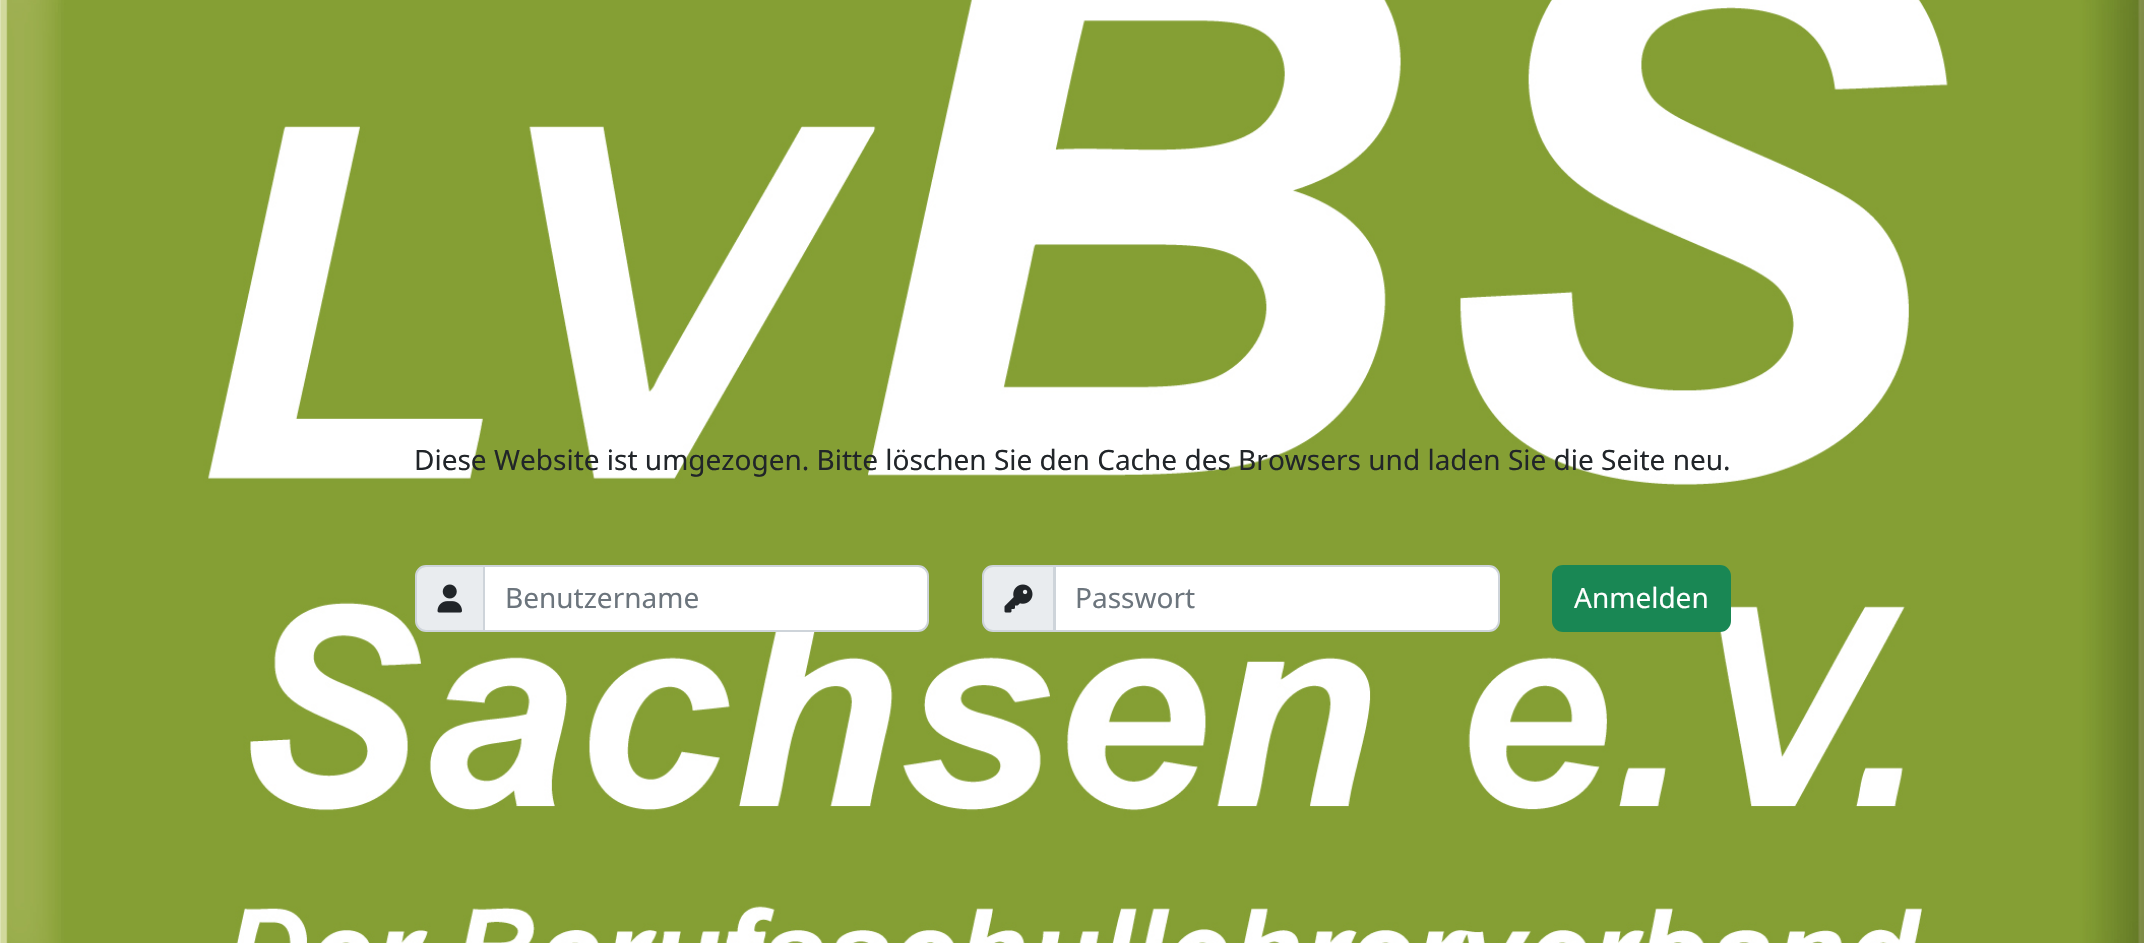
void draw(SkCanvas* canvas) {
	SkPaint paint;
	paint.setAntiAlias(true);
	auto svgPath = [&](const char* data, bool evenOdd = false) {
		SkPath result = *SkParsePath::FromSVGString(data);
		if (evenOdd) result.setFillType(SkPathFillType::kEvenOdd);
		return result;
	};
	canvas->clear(0xffffffff);
	canvas->drawImageRect(SkImages::DeferredFromEncodedData(SkData::MakeFromFileName("img1.png")), SkRect::MakeXYWH(0, 0, 2144, 943), SkSamplingOptions());
	SkFont f1(fontMgr->matchFamilyStyle("Noto Sans", SkFontStyle::Normal()), 28);
	f1.setSubpixel(true);
	paint.setColor(0xff212529);
	canvas->drawString("Diese Website ist umgezogen. Bitte löschen Sie den Cache des Browsers und laden Sie die Seite neu.", 414, 470, f1, paint);
	paint.setColor(0xffe9ecef);
	canvas->drawPath(svgPath("M426 566H484V631H426C420.5 631 416 626.5 416 621V576C416 570.5 420.5 566 426 566Z"), paint);
	paint.setStroke(true);
	paint.setStrokeWidth(2);
	paint.setColor(0xffced4da);
	canvas->drawPath(svgPath("M426 566H484V631H426C420.5 631 416 626.5 416 621V576C416 570.5 420.5 566 426 566Z"), paint);
	canvas->drawImageRect(SkImages::DeferredFromEncodedData(SkData::MakeFromFileName("img2.png")), SkRect::MakeXYWH(437, 584, 25, 29), SkSamplingOptions());
	paint.setStroke(false);
	paint.setColor(0xffffffff);
	canvas->drawPath(svgPath("M484 566H918C923.5 566 928 570.5 928 576V621C928 626.5 923.5 631 918 631H484Z"), paint);
	paint.setStroke(true);
	paint.setColor(0xffced4da);
	canvas->drawPath(svgPath("M484 566H918C923.5 566 928 570.5 928 576V621C928 626.5 923.5 631 918 631H484Z"), paint);
	paint.setStroke(false);
	paint.setColor(0xff6c757d);
	canvas->drawString("Benutzername", 505, 608, f1, paint);
	paint.setColor(0xffe9ecef);
	canvas->drawPath(svgPath("M993 566H1054V631H993C987.5 631 983 626.5 983 621V576C983 570.5 987.5 566 993 566Z"), paint);
	paint.setStroke(true);
	paint.setColor(0xffced4da);
	canvas->drawPath(svgPath("M993 566H1054V631H993C987.5 631 983 626.5 983 621V576C983 570.5 987.5 566 993 566Z"), paint);
	canvas->drawImageRect(SkImages::DeferredFromEncodedData(SkData::MakeFromFileName("img3.png")), SkRect::MakeXYWH(1004, 584, 29, 29), SkSamplingOptions());
	paint.setStroke(false);
	paint.setColor(0xffffffff);
	canvas->drawPath(svgPath("M1055 566H1489C1494.5 566 1499 570.5 1499 576V621C1499 626.5 1494.5 631 1489 631H1055Z"), paint);
	paint.setStroke(true);
	paint.setColor(0xffced4da);
	canvas->drawPath(svgPath("M1055 566H1489C1494.5 566 1499 570.5 1499 576V621C1499 626.5 1494.5 631 1489 631H1055Z"), paint);
	paint.setStroke(false);
	paint.setColor(0xff6c757d);
	canvas->drawString("Passwort", 1075, 608, f1, paint);
	paint.setColor(0xff198754);
	canvas->drawRoundRect(SkRect::MakeXYWH(1553, 566, 177, 65), 10, 10, paint);
	paint.setStroke(true);
	canvas->drawRoundRect(SkRect::MakeXYWH(1553, 566, 177, 65), 10, 10, paint);
	paint.setStroke(false);
	paint.setColor(0xffffffff);
	canvas->drawString("Anmelden", 1574, 608, f1, paint);
}
